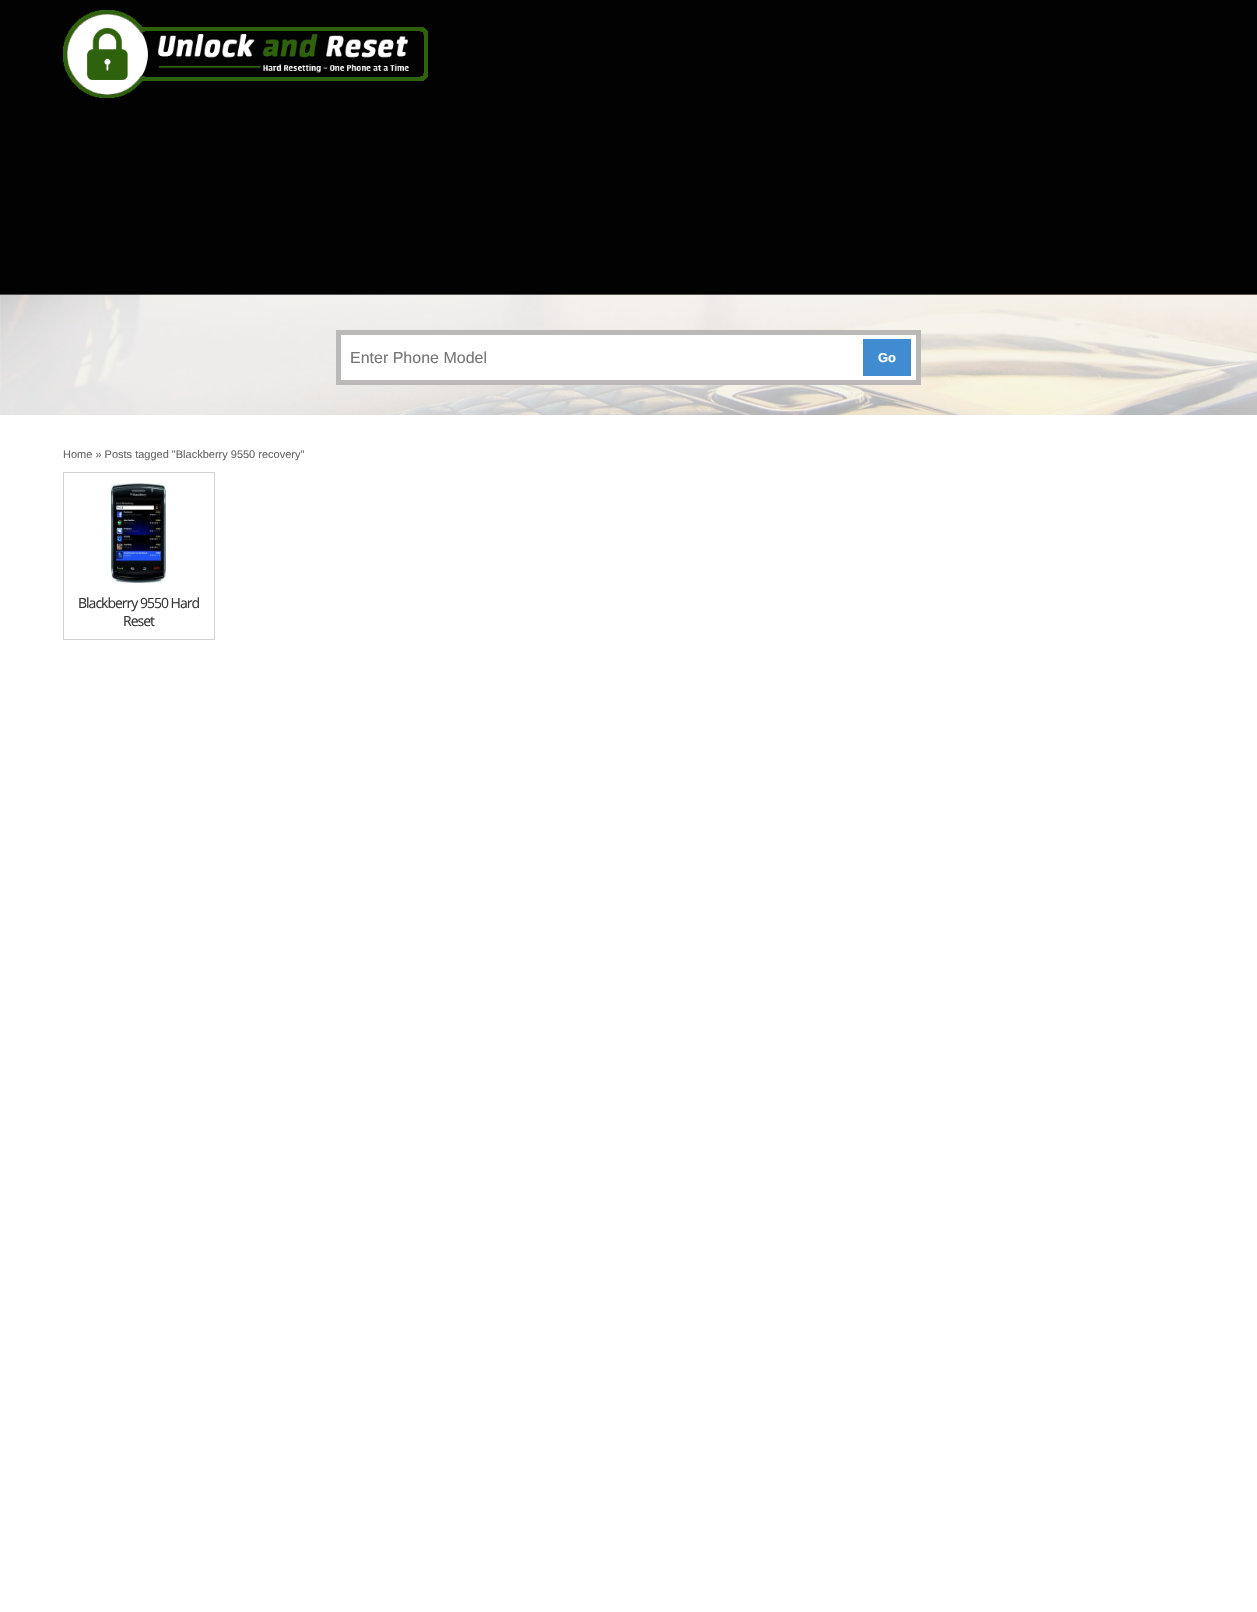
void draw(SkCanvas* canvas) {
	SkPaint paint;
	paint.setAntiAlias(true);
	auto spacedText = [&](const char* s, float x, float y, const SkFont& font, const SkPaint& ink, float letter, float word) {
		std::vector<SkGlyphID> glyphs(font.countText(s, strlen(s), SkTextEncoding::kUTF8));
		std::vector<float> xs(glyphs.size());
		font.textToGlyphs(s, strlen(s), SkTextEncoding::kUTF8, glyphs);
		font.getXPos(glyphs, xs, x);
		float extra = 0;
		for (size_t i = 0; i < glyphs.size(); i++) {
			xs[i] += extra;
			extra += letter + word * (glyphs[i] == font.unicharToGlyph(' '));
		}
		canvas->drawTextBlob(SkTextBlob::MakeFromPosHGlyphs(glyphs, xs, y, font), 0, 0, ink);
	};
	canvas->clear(0xffffffff);
	paint.setColor(0xff020202);
	canvas->drawRect(SkRect::MakeXYWH(0, 0, 1257, 294), paint);
	canvas->drawImageRect(SkImages::DeferredFromEncodedData(SkData::MakeFromFileName("img1.png")), SkRect::MakeXYWH(63, 10, 365, 88), SkSamplingOptions());
	paint.setColor(0xff515151);
	canvas->drawRect(SkRect::MakeXYWH(0, 294, 1257, 1), paint);
	paint.setColor(0xfff4f3f3);
	canvas->drawRect(SkRect::MakeXYWH(0, 295, 1257, 120), paint);
	canvas->drawImageRect(SkImages::DeferredFromEncodedData(SkData::MakeFromFileName("img2.png")), SkRect::MakeXYWH(0, 295, 1257, 120), SkSamplingOptions());
	paint.setColor(0xffffffff);
	canvas->drawRect(SkRect::MakeXYWH(338.5, 332.5, 580, 50), paint);
	paint.setStroke(true);
	paint.setStrokeWidth(5);
	paint.setColor(0xffbbb8b8);
	canvas->drawRect(SkRect::MakeXYWH(338.5, 332.5, 580, 50), paint);
	SkFont f1(fontMgr->matchFamilyStyle("Liberation Sans", SkFontStyle::Normal()), 16);
	f1.setSubpixel(true);
	paint.setStroke(false);
	paint.setColor(0xff757575);
	canvas->drawString("Enter Phone Model", 350, 363, f1, paint);
	paint.setColor(0xff418cd1);
	canvas->drawRect(SkRect::MakeXYWH(863, 339, 48, 37), paint);
	SkFont f2(fontMgr->matchFamilyStyle("Liberation Sans", SkFontStyle::Bold()), 13);
	f2.setSubpixel(true);
	paint.setColor(0xffffffff);
	canvas->drawString("Go", 878, 362, f2, paint);
	SkFont f3(fontMgr->matchFamilyStyle("Liberation Sans", SkFontStyle::Normal()), 11);
	f3.setSubpixel(true);
	paint.setColor(0xff666565);
	canvas->drawString("Home » Posts tagged \"Blackberry 9550 recovery\"", 63, 458, f3, paint);
	paint.setStroke(true);
	paint.setStrokeWidth(1);
	paint.setColor(0xffd4d4d4);
	canvas->drawRect(SkRect::MakeXYWH(63.5, 472.5, 151, 167), paint);
	canvas->drawImageRect(SkImages::DeferredFromEncodedData(SkData::MakeFromFileName("img3.png")), SkRect::MakeXYWH(111, 483, 55, 100), SkSamplingOptions());
	SkFont f4(fontMgr->matchFamilyStyle("Open Sans", SkFontStyle::Normal()), 14);
	f4.setSubpixel(true);
	paint.setStroke(false);
	paint.setColor(0xff333333);
	spacedText("Blackberry 9550 Hard", 78, 608, f4, paint, -1, 0);
	spacedText("Reset", 123, 626, f4, paint, -1, 0);
}
